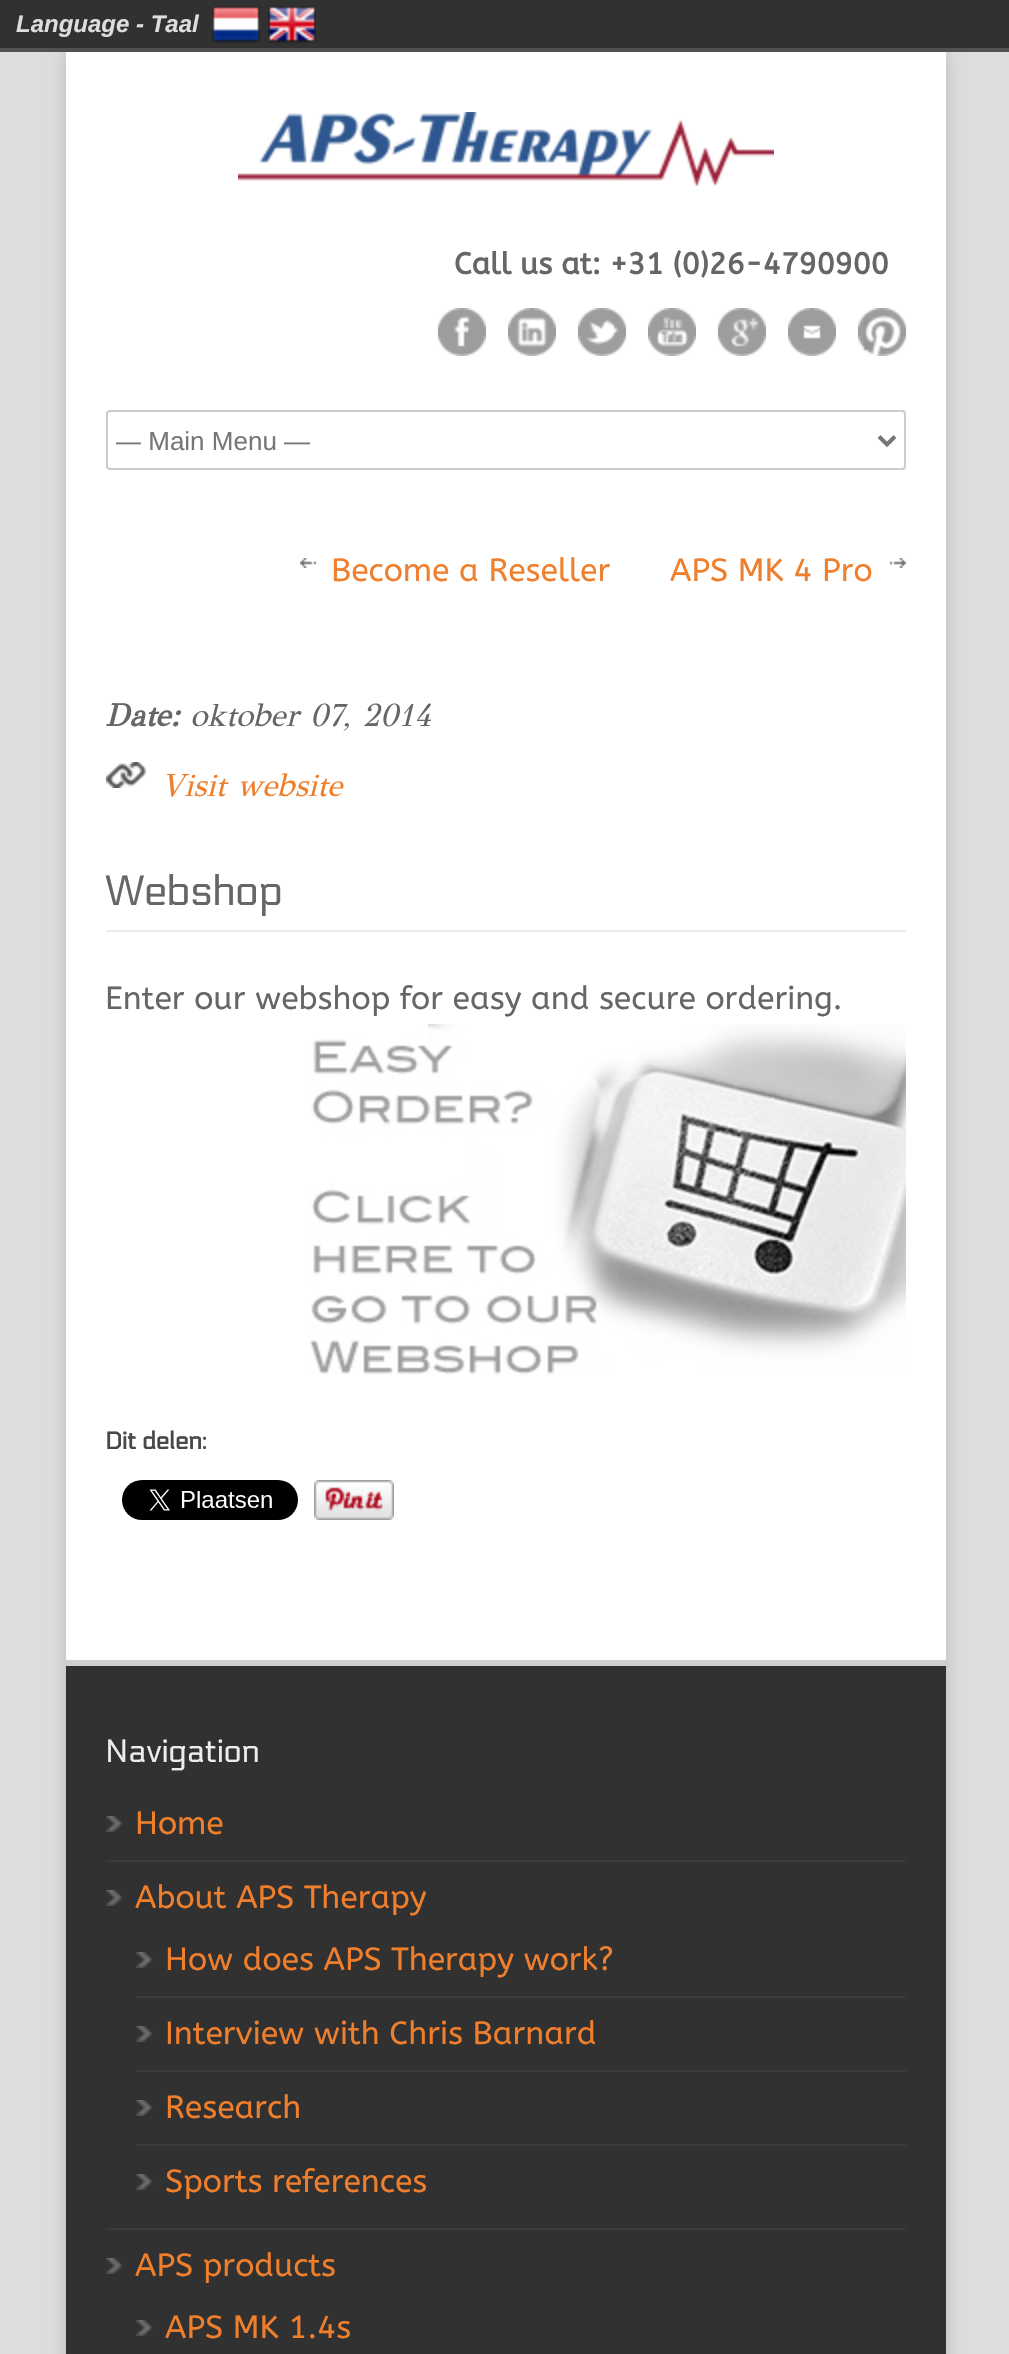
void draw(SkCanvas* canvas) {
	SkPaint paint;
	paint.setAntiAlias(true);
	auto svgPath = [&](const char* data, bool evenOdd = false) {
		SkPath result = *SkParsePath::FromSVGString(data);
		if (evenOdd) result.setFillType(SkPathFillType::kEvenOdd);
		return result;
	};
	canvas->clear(0xffdddddd);
	paint.setColor(0xffbbbbbb);
	paint.setMaskFilter(SkMaskFilter::MakeBlur(kNormal_SkBlurStyle, 8));
	canvas->drawRect(SkRect::MakeXYWH(66, 52, 880, 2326), paint);
	paint.setMaskFilter(nullptr);
	paint.setColor(0xff313131);
	canvas->drawRect(SkRect::MakeXYWH(0, 0, 1009, 48), paint);
	paint.setColor(0xff515150);
	canvas->drawRect(SkRect::MakeXYWH(0, 48, 1009, 4), paint);
	SkFont f1(fontMgr->matchFamilyStyle("Liberation Sans", SkFontStyle::BoldItalic()), 24);
	f1.setSubpixel(true);
	paint.setColor(0xffdddddd);
	canvas->drawString("Language - Taal", 16, 32, f1, paint);
	canvas->drawImageRect(SkImages::DeferredFromEncodedData(SkData::MakeFromFileName("img1.png")), SkRect::MakeXYWH(212, 6, 48, 37), SkSamplingOptions());
	canvas->drawImageRect(SkImages::DeferredFromEncodedData(SkData::MakeFromFileName("img2.png")), SkRect::MakeXYWH(268, 6, 48, 37), SkSamplingOptions());
	paint.setColor(0xffffffff);
	canvas->drawRect(SkRect::MakeXYWH(66, 52, 880, 1608), paint);
	canvas->drawImageRect(SkImages::DeferredFromEncodedData(SkData::MakeFromFileName("img3.png")), SkRect::MakeXYWH(238, 112, 536, 74), SkSamplingOptions());
	SkFont f2(fontMgr->matchFamilyStyle("ABeeZee", SkFontStyle::Bold()), 30);
	f2.setSubpixel(true);
	paint.setColor(0xff666666);
	canvas->drawString("Call us at: +31 (0)26-4790900", 454, 274, f2, paint);
	canvas->drawImageRect(SkImages::DeferredFromEncodedData(SkData::MakeFromFileName("img4.png")), SkRect::MakeXYWH(438, 308, 48, 48), SkSamplingOptions());
	canvas->drawImageRect(SkImages::DeferredFromEncodedData(SkData::MakeFromFileName("img5.png")), SkRect::MakeXYWH(508, 308, 48, 48), SkSamplingOptions());
	canvas->drawImageRect(SkImages::DeferredFromEncodedData(SkData::MakeFromFileName("img6.png")), SkRect::MakeXYWH(578, 308, 48, 48), SkSamplingOptions());
	canvas->drawImageRect(SkImages::DeferredFromEncodedData(SkData::MakeFromFileName("img7.png")), SkRect::MakeXYWH(648, 308, 48, 48), SkSamplingOptions());
	canvas->drawImageRect(SkImages::DeferredFromEncodedData(SkData::MakeFromFileName("img8.png")), SkRect::MakeXYWH(718, 308, 48, 48), SkSamplingOptions());
	canvas->drawImageRect(SkImages::DeferredFromEncodedData(SkData::MakeFromFileName("img9.png")), SkRect::MakeXYWH(788, 308, 48, 48), SkSamplingOptions());
	canvas->drawImageRect(SkImages::DeferredFromEncodedData(SkData::MakeFromFileName("img10.png")), SkRect::MakeXYWH(858, 308, 48, 48), SkSamplingOptions());
	paint.setStroke(true);
	paint.setStrokeWidth(2);
	paint.setColor(0xffcccccc);
	canvas->drawRoundRect(SkRect::MakeXYWH(107, 411, 798, 58), 3, 3, paint);
	paint.setStrokeWidth(4);
	paint.setColor(0xff777777);
	canvas->drawPath(svgPath("M879 436.5L887 444.5L895 436.5"), paint);
	canvas->save();
	canvas->clipRect(SkRect::MakeXYWH(116, 424, 756, 34));
	SkFont f3(fontMgr->matchFamilyStyle("Liberation Sans", SkFontStyle::Normal()), 26);
	f3.setSubpixel(true);
	paint.setStroke(false);
	canvas->drawString("— Main Menu —", 115, 450, f3, paint);
	canvas->restore();
	canvas->drawImageRect(SkImages::DeferredFromEncodedData(SkData::MakeFromFileName("img11.png")), SkRect::MakeXYWH(300, 558, 16, 10), SkSamplingOptions());
	SkFont f4(fontMgr->matchFamilyStyle("ABeeZee", SkFontStyle::Normal()), 32);
	f4.setSubpixel(true);
	paint.setColor(0xffef7f2c);
	canvas->drawString("Become a Reseller", 331, 581, f4, paint);
	canvas->drawString("APS MK 4 Pro", 670, 581, f4, paint);
	canvas->drawImageRect(SkImages::DeferredFromEncodedData(SkData::MakeFromFileName("img12.png")), SkRect::MakeXYWH(890, 558, 16, 10), SkSamplingOptions());
	SkFont f5(fontMgr->matchFamilyStyle("GFS Didot", SkFontStyle::BoldItalic()), 32);
	f5.setSubpixel(true);
	paint.setColor(0xff666666);
	canvas->drawString("Date:", 105, 726, f5, paint);
	SkFont f6(fontMgr->matchFamilyStyle("GFS Didot", SkFontStyle::Italic()), 32);
	f6.setSubpixel(true);
	canvas->drawString("oktober 07, 2014", 190, 726, f6, paint);
	canvas->drawImageRect(SkImages::DeferredFromEncodedData(SkData::MakeFromFileName("img13.png")), SkRect::MakeXYWH(106, 762, 40, 26), SkSamplingOptions());
	paint.setColor(0xffef7f2c);
	canvas->drawString("Visit website", 161, 796, f6, paint);
	paint.setColor(0xffececec);
	canvas->drawRect(SkRect::MakeXYWH(106, 930, 800, 2), paint);
	SkFont f7(fontMgr->matchFamilyStyle("Electrolize", SkFontStyle::Normal()), 42);
	f7.setSubpixel(true);
	paint.setColor(0xff666666);
	canvas->drawString("Webshop", 105, 905, f7, paint);
	canvas->drawString("Enter our webshop for easy and secure ordering.", 105, 1009, f4, paint);
	canvas->drawImageRect(SkImages::DeferredFromEncodedData(SkData::MakeFromFileName("img14.png")), SkRect::MakeXYWH(309, 1024, 597, 351), SkSamplingOptions());
	SkFont f8(fontMgr->matchFamilyStyle("Electrolize", SkFontStyle::Bold()), 24);
	f8.setSubpixel(true);
	paint.setColor(0xff494949);
	canvas->drawString("Dit delen:", 105, 1449, f8, paint);
	canvas->drawImageRect(SkImages::DeferredFromEncodedData(SkData::MakeFromFileName("img15.png")), SkRect::MakeXYWH(122, 1480, 176, 40), SkSamplingOptions());
	canvas->drawImageRect(SkImages::DeferredFromEncodedData(SkData::MakeFromFileName("img16.png")), SkRect::MakeXYWH(314, 1480, 80, 40), SkSamplingOptions());
	paint.setColor(0xff313131);
	canvas->drawRect(SkRect::MakeXYWH(66, 1666, 880, 688), paint);
	paint.setColor(0xffcfcfcf);
	canvas->drawRect(SkRect::MakeXYWH(66, 1660, 880, 6), paint);
	SkFont f9(fontMgr->matchFamilyStyle("Electrolize", SkFontStyle::Normal()), 32);
	f9.setSubpixel(true);
	paint.setColor(0xffececec);
	canvas->drawString("Navigation", 105, 1762, f9, paint);
	canvas->drawImageRect(SkImages::DeferredFromEncodedData(SkData::MakeFromFileName("img17.png")), SkRect::MakeXYWH(106, 1816, 17, 16), SkSamplingOptions());
	paint.setColor(0xff3b3b3b);
	canvas->drawRect(SkRect::MakeXYWH(106, 1860, 800, 2), paint);
	paint.setColor(0xffef7f2c);
	canvas->drawString("Home", 135, 1834, f4, paint);
	canvas->drawImageRect(SkImages::DeferredFromEncodedData(SkData::MakeFromFileName("img17.png")), SkRect::MakeXYWH(106, 1890, 17, 16), SkSamplingOptions());
	paint.setColor(0xff3b3b3b);
	canvas->drawRect(SkRect::MakeXYWH(106, 2228, 800, 2), paint);
	paint.setColor(0xffef7f2c);
	canvas->drawString("About APS Therapy", 135, 1908, f4, paint);
	canvas->drawImageRect(SkImages::DeferredFromEncodedData(SkData::MakeFromFileName("img17.png")), SkRect::MakeXYWH(136, 1952, 17, 16), SkSamplingOptions());
	paint.setColor(0xff3b3b3b);
	canvas->drawRect(SkRect::MakeXYWH(136, 1996, 770, 2), paint);
	paint.setColor(0xffef7f2c);
	canvas->drawString("How does APS Therapy work?", 165, 1970, f4, paint);
	canvas->drawImageRect(SkImages::DeferredFromEncodedData(SkData::MakeFromFileName("img17.png")), SkRect::MakeXYWH(136, 2026, 17, 16), SkSamplingOptions());
	paint.setColor(0xff3b3b3b);
	canvas->drawRect(SkRect::MakeXYWH(136, 2070, 770, 2), paint);
	paint.setColor(0xffef7f2c);
	canvas->drawString("Interview with Chris Barnard", 165, 2044, f4, paint);
	canvas->drawImageRect(SkImages::DeferredFromEncodedData(SkData::MakeFromFileName("img17.png")), SkRect::MakeXYWH(136, 2100, 17, 16), SkSamplingOptions());
	paint.setColor(0xff3b3b3b);
	canvas->drawRect(SkRect::MakeXYWH(136, 2144, 770, 2), paint);
	paint.setColor(0xffef7f2c);
	canvas->drawString("Research", 165, 2118, f4, paint);
	canvas->drawImageRect(SkImages::DeferredFromEncodedData(SkData::MakeFromFileName("img17.png")), SkRect::MakeXYWH(136, 2174, 17, 16), SkSamplingOptions());
	canvas->drawString("Sports references", 165, 2192, f4, paint);
	canvas->drawImageRect(SkImages::DeferredFromEncodedData(SkData::MakeFromFileName("img17.png")), SkRect::MakeXYWH(106, 2258, 17, 16), SkSamplingOptions());
	canvas->drawString("APS products", 135, 2276, f4, paint);
	canvas->drawImageRect(SkImages::DeferredFromEncodedData(SkData::MakeFromFileName("img17.png")), SkRect::MakeXYWH(136, 2320, 17, 16), SkSamplingOptions());
	canvas->drawString("APS MK 1.4s", 165, 2338, f4, paint);
}
